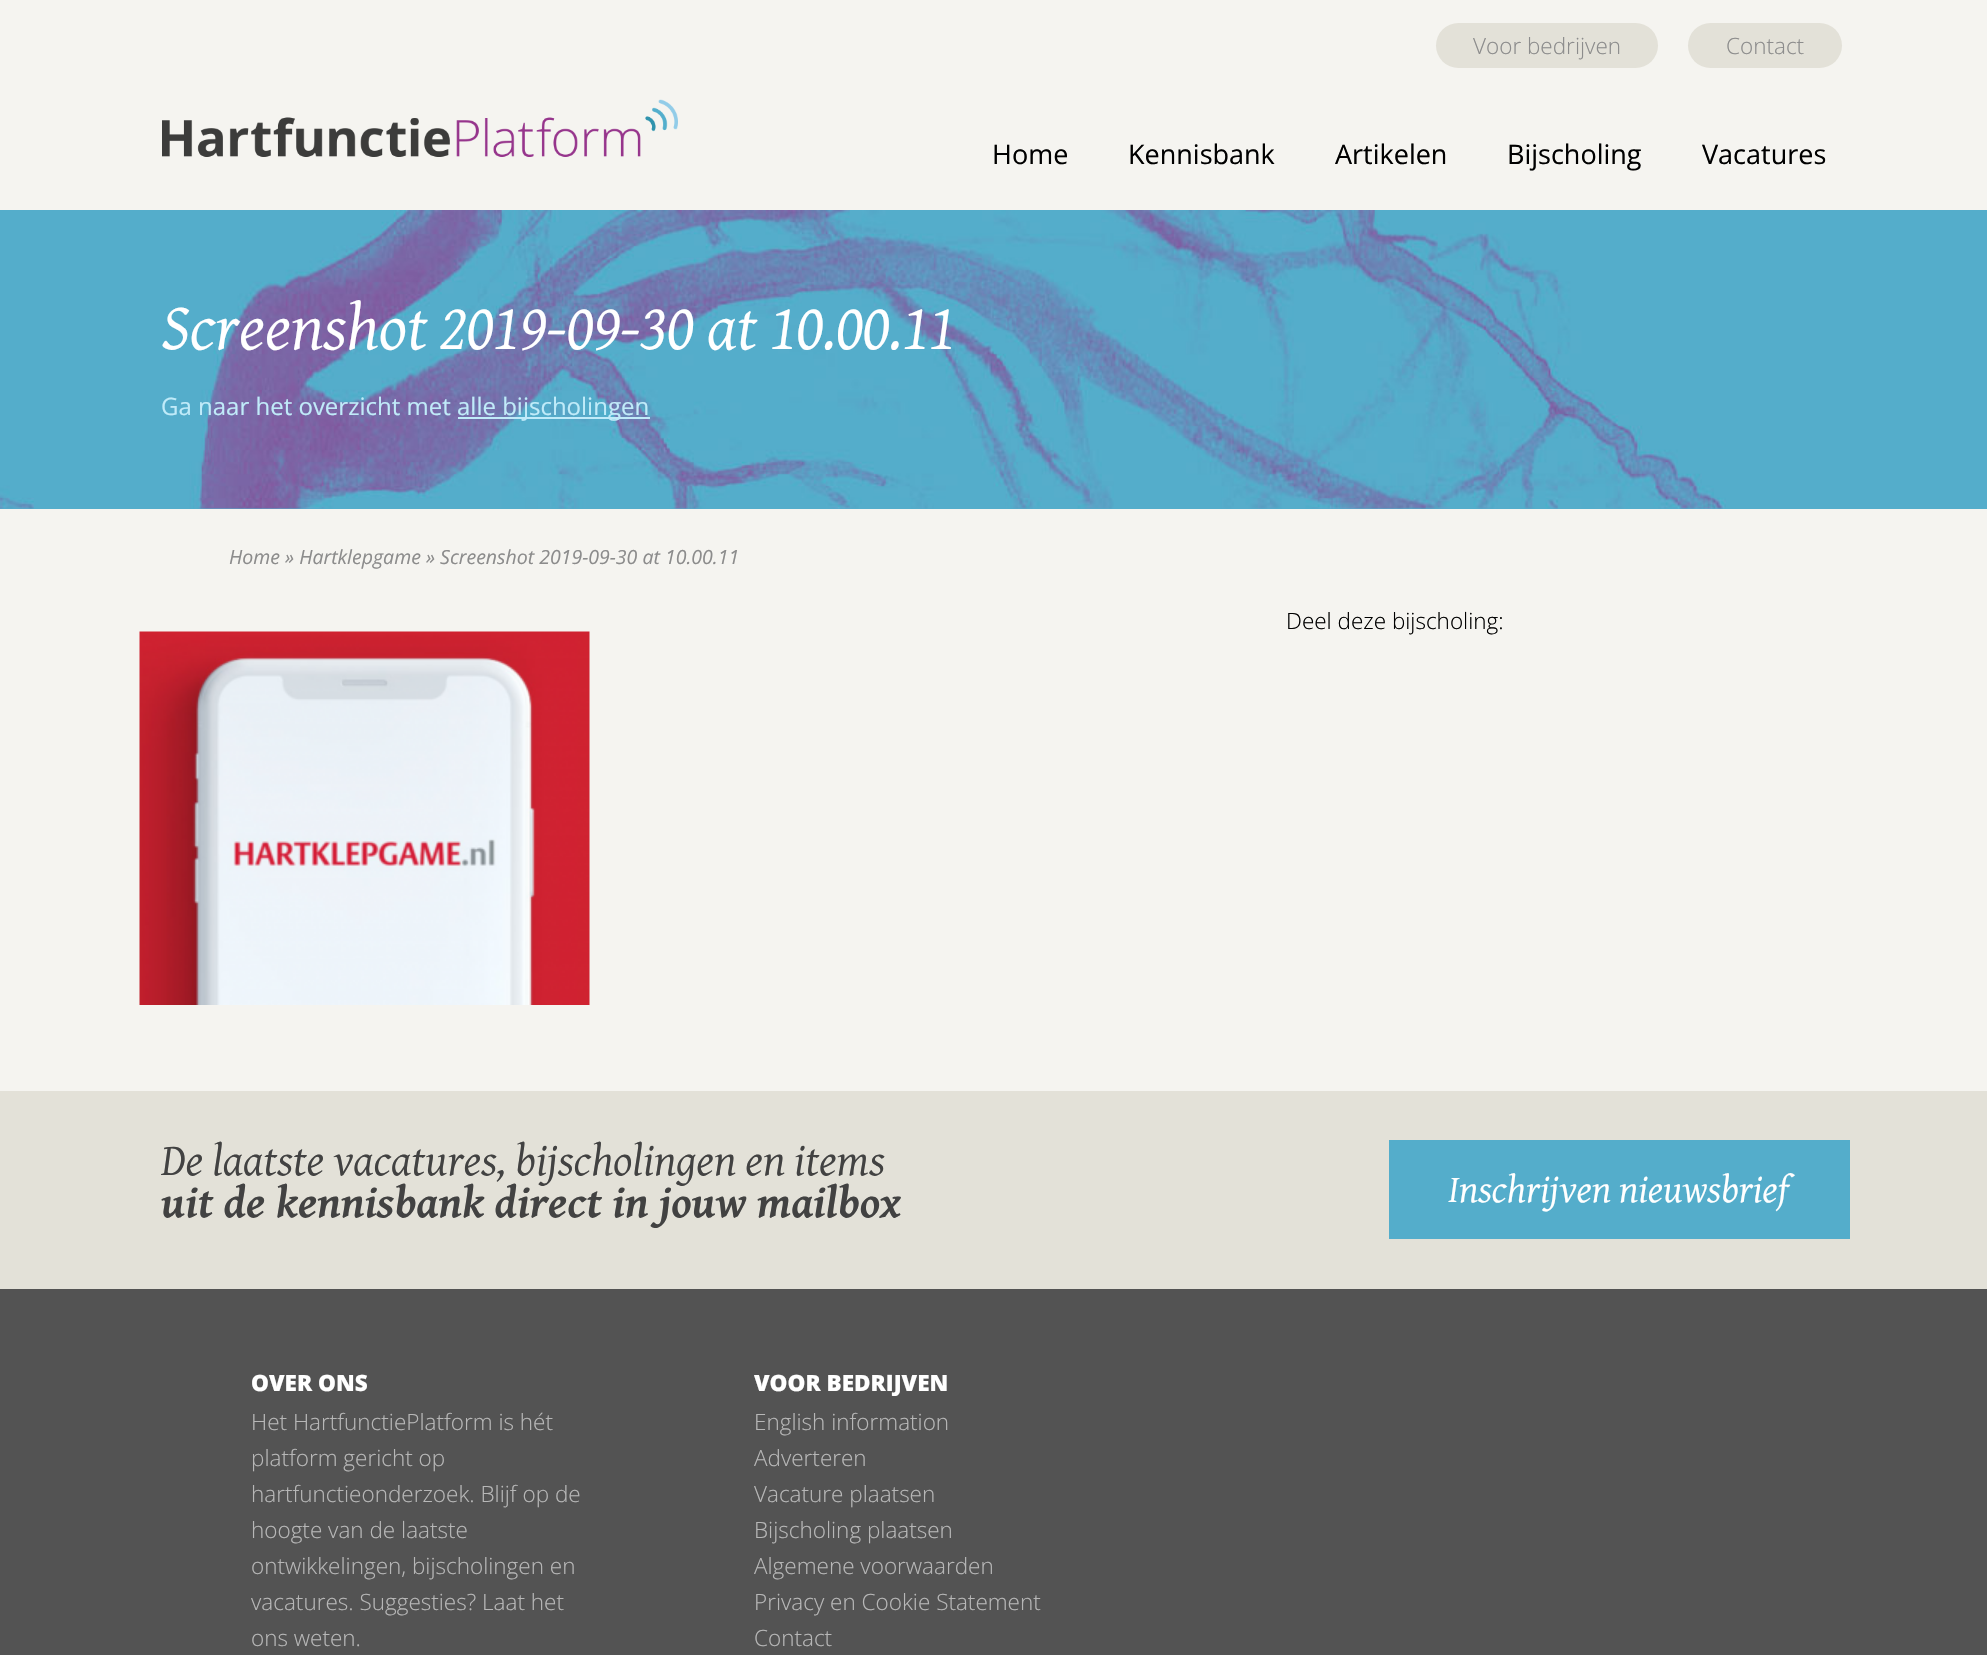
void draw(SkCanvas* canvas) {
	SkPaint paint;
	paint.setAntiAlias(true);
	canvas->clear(0xfff5f4f0);
	canvas->drawImageRect(SkImages::DeferredFromEncodedData(SkData::MakeFromFileName("img1.png")), SkRect::MakeXYWH(162, 99, 516, 58), SkSamplingOptions());
	paint.setColor(0xffe3e1d8);
	canvas->drawRoundRect(SkRect::MakeXYWH(1436, 23, 222, 45), 22.5, 22.5, paint);
	SkFont f1(fontMgr->matchFamilyStyle("Open Sans", SkFontStyle(300, SkFontStyle::kNormal_Width, SkFontStyle::kUpright_Slant)), 22.5);
	f1.setSubpixel(true);
	paint.setColor(0xff8c8c8c);
	canvas->drawString("Voor bedrijven", 1473, 54, f1, paint);
	paint.setColor(0xffe3e1d8);
	canvas->drawRoundRect(SkRect::MakeXYWH(1688, 23, 154, 45), 22.5, 22.5, paint);
	paint.setColor(0xff8c8c8c);
	canvas->drawString("Contact", 1726, 54, f1, paint);
	SkFont f2(fontMgr->matchFamilyStyle("Open Sans", SkFontStyle::Normal()), 27);
	f2.setSubpixel(true);
	paint.setColor(0xff000000);
	canvas->drawString("Home", 992, 164, f2, paint);
	canvas->drawString("Kennisbank", 1128, 164, f2, paint);
	canvas->drawString("Artikelen", 1335, 164, f2, paint);
	canvas->drawString("Bijscholing", 1507, 164, f2, paint);
	canvas->drawString("Vacatures", 1702, 164, f2, paint);
	paint.setColor(0xff54adcb);
	canvas->drawRect(SkRect::MakeXYWH(0, 210, 1987, 299), paint);
	canvas->drawImageRect(SkImages::DeferredFromEncodedData(SkData::MakeFromFileName("img2.png")), SkRect::MakeXYWH(0, 210, 1726, 299), SkSamplingOptions());
	SkFont f3(fontMgr->matchFamilyStyle("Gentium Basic", SkFontStyle::Italic()), 66);
	f3.setSubpixel(true);
	paint.setColor(0xffffffff);
	canvas->drawString("Screenshot 2019-09-30 at 10.00.11", 161, 349, f3, paint);
	SkFont f4(fontMgr->matchFamilyStyle("Open Sans", SkFontStyle::Normal()), 24);
	f4.setSubpixel(true);
	paint.setColor(0xffc0ebf9);
	canvas->drawString("Ga naar het overzicht met", 161, 415, f4, paint);
	canvas->drawRect(SkRect::MakeXYWH(458, 417, 192, 2), paint);
	canvas->drawString("alle bijscholingen", 457, 415, f4, paint);
	SkFont f5(fontMgr->matchFamilyStyle("Open Sans", SkFontStyle::Italic()), 19.5);
	f5.setSubpixel(true);
	paint.setColor(0xff8c8c8c);
	canvas->drawString("Home » Hartklepgame » Screenshot 2019-09-30 at 10.00.11", 229, 564, f5, paint);
	paint.setColor(0xff000000);
	canvas->drawString("Deel deze bijscholing:", 1286, 629, f1, paint);
	canvas->drawImageRect(SkImages::DeferredFromEncodedData(SkData::MakeFromFileName("img3.png")), SkRect::MakeXYWH(139, 631, 451, 374), SkSamplingOptions());
	paint.setColor(0xff535353);
	canvas->drawRect(SkRect::MakeXYWH(0, 1289, 1987, 366), paint);
	paint.setColor(0xffe3e1d8);
	canvas->drawRect(SkRect::MakeXYWH(0, 1091, 1987, 198), paint);
	SkFont f6(fontMgr->matchFamilyStyle("Gentium Basic", SkFontStyle::Italic()), 45);
	f6.setSubpixel(true);
	paint.setColor(0xff424242);
	canvas->drawString("De laatste vacatures, bijscholingen en items", 161, 1175, f6, paint);
	SkFont f7(fontMgr->matchFamilyStyle("Gentium Basic", SkFontStyle::BoldItalic()), 45);
	f7.setSubpixel(true);
	canvas->drawString("uit de kennisbank direct in jouw mailbox", 161, 1217, f7, paint);
	paint.setColor(0xff54adcb);
	canvas->drawRect(SkRect::MakeXYWH(1389, 1140, 461, 99), paint);
	SkFont f8(fontMgr->matchFamilyStyle("Gentium Basic", SkFontStyle::Italic()), 39);
	f8.setSubpixel(true);
	paint.setColor(0xffffffff);
	canvas->drawString("Inschrijven nieuwsbrief", 1448, 1202, f8, paint);
	SkFont f9(fontMgr->matchFamilyStyle("Open Sans", SkFontStyle(800, SkFontStyle::kNormal_Width, SkFontStyle::kUpright_Slant)), 22.5);
	f9.setSubpixel(true);
	canvas->drawString("OVER ONS", 251, 1391, f9, paint);
	paint.setColor(0xffb7b7b7);
	canvas->drawString("Het HartfunctiePlatform is hét", 251, 1430, f1, paint);
	canvas->drawString("platform gericht op", 251, 1466, f1, paint);
	canvas->drawString("hartfunctieonderzoek. Blijf op de", 251, 1502, f1, paint);
	canvas->drawString("hoogte van de laatste", 251, 1538, f1, paint);
	canvas->drawString("ontwikkelingen, bijscholingen en", 251, 1574, f1, paint);
	canvas->drawString("vacatures. Suggesties? Laat het", 251, 1610, f1, paint);
	canvas->drawString("ons weten.", 251, 1646, f1, paint);
	paint.setColor(0xffffffff);
	canvas->drawString("VOOR BEDRIJVEN", 754, 1391, f9, paint);
	paint.setColor(0xffb7b7b7);
	canvas->drawString("English information", 754, 1430, f1, paint);
	canvas->drawString("Adverteren", 754, 1466, f1, paint);
	canvas->drawString("Vacature plaatsen", 754, 1502, f1, paint);
	canvas->drawString("Bijscholing plaatsen", 754, 1538, f1, paint);
	canvas->drawString("Algemene voorwaarden", 754, 1574, f1, paint);
	canvas->drawString("Privacy en Cookie Statement", 754, 1610, f1, paint);
	canvas->drawString("Contact", 754, 1646, f1, paint);
}
